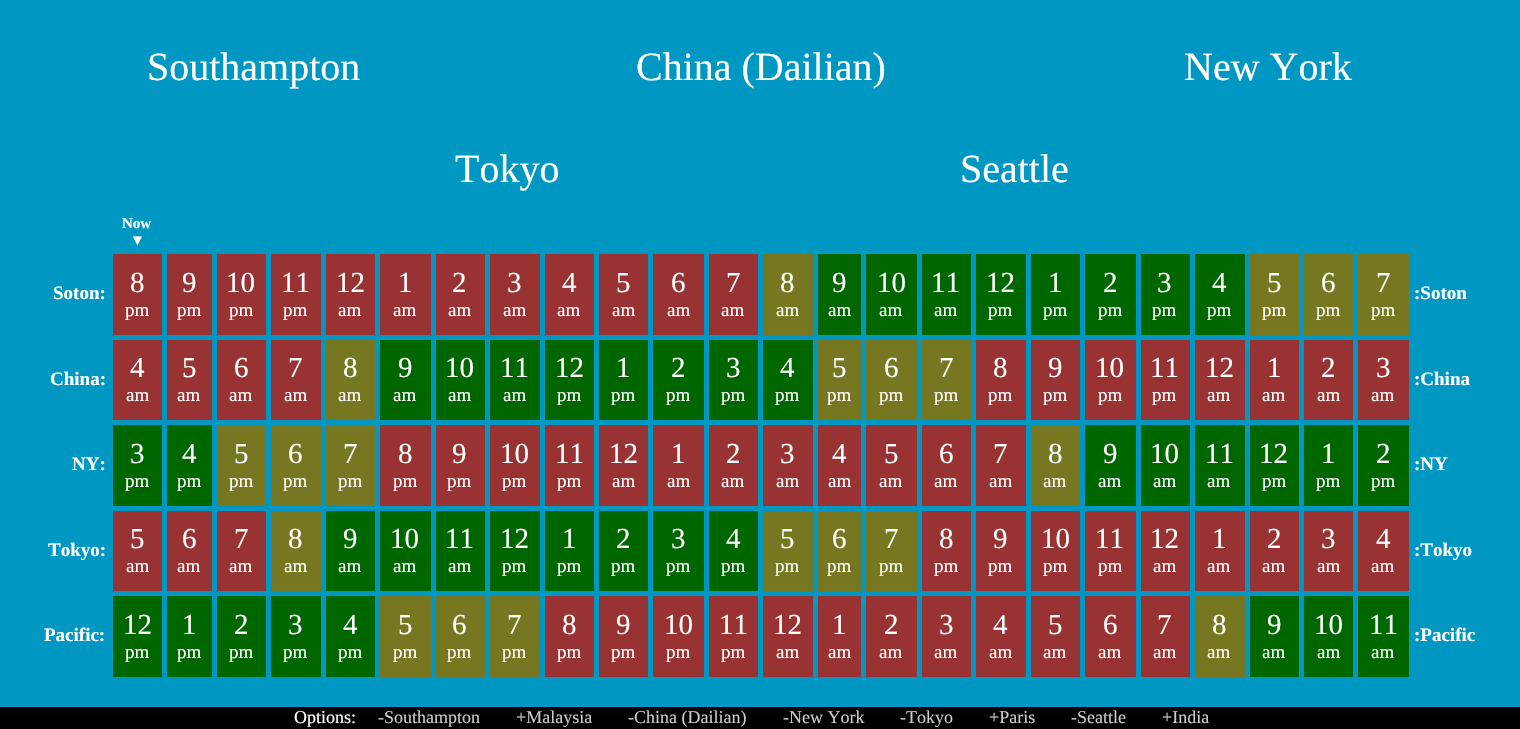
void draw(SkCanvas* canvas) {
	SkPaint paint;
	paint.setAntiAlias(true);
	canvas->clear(0xff0098c3);
	SkFont f1(fontMgr->matchFamilyStyle("Liberation Serif", SkFontStyle::Normal()), 40);
	f1.setSubpixel(true);
	paint.setColor(0xffffffff);
	canvas->drawString("Southampton", 147, 80, f1, paint);
	canvas->drawString("China (Dailian)", 636, 80, f1, paint);
	canvas->drawString("New York", 1184, 80, f1, paint);
	canvas->drawString("Tokyo", 455, 182, f1, paint);
	canvas->drawString("Seattle", 960, 182, f1, paint);
	SkFont f2(fontMgr->matchFamilyStyle("Liberation Serif", SkFontStyle::Bold()), 15);
	f2.setSubpixel(true);
	canvas->drawString("Now", 122, 228, f2, paint);
	canvas->drawString("▼", 130, 245, f2, paint);
	SkFont f3(fontMgr->matchFamilyStyle("Liberation Serif", SkFontStyle::Bold()), 19);
	f3.setSubpixel(true);
	canvas->drawString("Soton:", 53, 299, f3, paint);
	paint.setColor(0xff993333);
	canvas->drawRect(SkRect::MakeXYWH(113, 254, 49, 81), paint);
	SkFont f4(fontMgr->matchFamilyStyle("Liberation Serif", SkFontStyle::Normal()), 29);
	f4.setSubpixel(true);
	paint.setColor(0xffffffff);
	canvas->drawString("8", 130, 292, f4, paint);
	SkFont f5(fontMgr->matchFamilyStyle("Liberation Serif", SkFontStyle::Normal()), 19);
	f5.setSubpixel(true);
	canvas->drawString("pm", 125, 316, f5, paint);
	paint.setColor(0xff993333);
	canvas->drawRect(SkRect::MakeXYWH(167, 254, 45, 81), paint);
	paint.setColor(0xffffffff);
	canvas->drawString("9", 182, 292, f4, paint);
	canvas->drawString("pm", 177, 316, f5, paint);
	paint.setColor(0xff993333);
	canvas->drawRect(SkRect::MakeXYWH(217, 254, 49, 81), paint);
	paint.setColor(0xffffffff);
	canvas->drawString("10", 226, 292, f4, paint);
	canvas->drawString("pm", 229, 316, f5, paint);
	paint.setColor(0xff993333);
	canvas->drawRect(SkRect::MakeXYWH(271, 254, 50, 81), paint);
	paint.setColor(0xffffffff);
	canvas->drawString("11", 281, 292, f4, paint);
	canvas->drawString("pm", 283, 316, f5, paint);
	paint.setColor(0xff993333);
	canvas->drawRect(SkRect::MakeXYWH(326, 254, 49, 81), paint);
	paint.setColor(0xffffffff);
	canvas->drawString("12", 336, 292, f4, paint);
	canvas->drawString("am", 338, 316, f5, paint);
	paint.setColor(0xff993333);
	canvas->drawRect(SkRect::MakeXYWH(380, 254, 51, 81), paint);
	paint.setColor(0xffffffff);
	canvas->drawString("1", 398, 292, f4, paint);
	canvas->drawString("am", 393, 316, f5, paint);
	paint.setColor(0xff993333);
	canvas->drawRect(SkRect::MakeXYWH(436, 254, 49, 81), paint);
	paint.setColor(0xffffffff);
	canvas->drawString("2", 452, 292, f4, paint);
	canvas->drawString("am", 448, 316, f5, paint);
	paint.setColor(0xff993333);
	canvas->drawRect(SkRect::MakeXYWH(490, 254, 50, 81), paint);
	paint.setColor(0xffffffff);
	canvas->drawString("3", 507, 292, f4, paint);
	canvas->drawString("am", 503, 316, f5, paint);
	paint.setColor(0xff993333);
	canvas->drawRect(SkRect::MakeXYWH(545, 254, 49, 81), paint);
	paint.setColor(0xffffffff);
	canvas->drawString("4", 562, 292, f4, paint);
	canvas->drawString("am", 557, 316, f5, paint);
	paint.setColor(0xff993333);
	canvas->drawRect(SkRect::MakeXYWH(599, 254, 49, 81), paint);
	paint.setColor(0xffffffff);
	canvas->drawString("5", 616, 292, f4, paint);
	canvas->drawString("am", 612, 316, f5, paint);
	paint.setColor(0xff993333);
	canvas->drawRect(SkRect::MakeXYWH(653, 254, 51, 81), paint);
	paint.setColor(0xffffffff);
	canvas->drawString("6", 671, 292, f4, paint);
	canvas->drawString("am", 667, 316, f5, paint);
	paint.setColor(0xff993333);
	canvas->drawRect(SkRect::MakeXYWH(709, 254, 49, 81), paint);
	paint.setColor(0xffffffff);
	canvas->drawString("7", 726, 292, f4, paint);
	canvas->drawString("am", 721, 316, f5, paint);
	paint.setColor(0xff777722);
	canvas->drawRect(SkRect::MakeXYWH(763, 254, 50, 81), paint);
	paint.setColor(0xffffffff);
	canvas->drawString("8", 780, 292, f4, paint);
	canvas->drawString("am", 776, 316, f5, paint);
	paint.setColor(0xff006600);
	canvas->drawRect(SkRect::MakeXYWH(818, 254, 43, 81), paint);
	paint.setColor(0xffffffff);
	canvas->drawString("9", 832, 292, f4, paint);
	canvas->drawString("am", 828, 316, f5, paint);
	paint.setColor(0xff006600);
	canvas->drawRect(SkRect::MakeXYWH(866, 254, 51, 81), paint);
	paint.setColor(0xffffffff);
	canvas->drawString("10", 877, 292, f4, paint);
	canvas->drawString("am", 879, 316, f5, paint);
	paint.setColor(0xff006600);
	canvas->drawRect(SkRect::MakeXYWH(922, 254, 49, 81), paint);
	paint.setColor(0xffffffff);
	canvas->drawString("11", 931, 292, f4, paint);
	canvas->drawString("am", 934, 316, f5, paint);
	paint.setColor(0xff006600);
	canvas->drawRect(SkRect::MakeXYWH(976, 254, 50, 81), paint);
	paint.setColor(0xffffffff);
	canvas->drawString("12", 986, 292, f4, paint);
	canvas->drawString("pm", 988, 316, f5, paint);
	paint.setColor(0xff006600);
	canvas->drawRect(SkRect::MakeXYWH(1031, 254, 49, 81), paint);
	paint.setColor(0xffffffff);
	canvas->drawString("1", 1048, 292, f4, paint);
	canvas->drawString("pm", 1043, 316, f5, paint);
	paint.setColor(0xff006600);
	canvas->drawRect(SkRect::MakeXYWH(1085, 254, 51, 81), paint);
	paint.setColor(0xffffffff);
	canvas->drawString("2", 1103, 292, f4, paint);
	canvas->drawString("pm", 1098, 316, f5, paint);
	paint.setColor(0xff006600);
	canvas->drawRect(SkRect::MakeXYWH(1141, 254, 49, 81), paint);
	paint.setColor(0xffffffff);
	canvas->drawString("3", 1157, 292, f4, paint);
	canvas->drawString("pm", 1152, 316, f5, paint);
	paint.setColor(0xff006600);
	canvas->drawRect(SkRect::MakeXYWH(1195, 254, 50, 81), paint);
	paint.setColor(0xffffffff);
	canvas->drawString("4", 1212, 292, f4, paint);
	canvas->drawString("pm", 1207, 316, f5, paint);
	paint.setColor(0xff777722);
	canvas->drawRect(SkRect::MakeXYWH(1250, 254, 49, 81), paint);
	paint.setColor(0xffffffff);
	canvas->drawString("5", 1267, 292, f4, paint);
	canvas->drawString("pm", 1262, 316, f5, paint);
	paint.setColor(0xff777722);
	canvas->drawRect(SkRect::MakeXYWH(1304, 254, 49, 81), paint);
	paint.setColor(0xffffffff);
	canvas->drawString("6", 1321, 292, f4, paint);
	canvas->drawString("pm", 1316, 316, f5, paint);
	paint.setColor(0xff777722);
	canvas->drawRect(SkRect::MakeXYWH(1358, 254, 51, 81), paint);
	paint.setColor(0xffffffff);
	canvas->drawString("7", 1376, 292, f4, paint);
	canvas->drawString("pm", 1371, 316, f5, paint);
	canvas->drawString(":Soton", 1414, 299, f3, paint);
	canvas->drawString("China:", 50, 385, f3, paint);
	paint.setColor(0xff993333);
	canvas->drawRect(SkRect::MakeXYWH(113, 340, 49, 80), paint);
	paint.setColor(0xffffffff);
	canvas->drawString("4", 130, 377, f4, paint);
	canvas->drawString("am", 126, 401, f5, paint);
	paint.setColor(0xff993333);
	canvas->drawRect(SkRect::MakeXYWH(167, 340, 45, 80), paint);
	paint.setColor(0xffffffff);
	canvas->drawString("5", 182, 377, f4, paint);
	canvas->drawString("am", 177, 401, f5, paint);
	paint.setColor(0xff993333);
	canvas->drawRect(SkRect::MakeXYWH(217, 340, 49, 80), paint);
	paint.setColor(0xffffffff);
	canvas->drawString("6", 234, 377, f4, paint);
	canvas->drawString("am", 229, 401, f5, paint);
	paint.setColor(0xff993333);
	canvas->drawRect(SkRect::MakeXYWH(271, 340, 50, 80), paint);
	paint.setColor(0xffffffff);
	canvas->drawString("7", 288, 377, f4, paint);
	canvas->drawString("am", 284, 401, f5, paint);
	paint.setColor(0xff777722);
	canvas->drawRect(SkRect::MakeXYWH(326, 340, 49, 80), paint);
	paint.setColor(0xffffffff);
	canvas->drawString("8", 343, 377, f4, paint);
	canvas->drawString("am", 338, 401, f5, paint);
	paint.setColor(0xff006600);
	canvas->drawRect(SkRect::MakeXYWH(380, 340, 51, 80), paint);
	paint.setColor(0xffffffff);
	canvas->drawString("9", 398, 377, f4, paint);
	canvas->drawString("am", 393, 401, f5, paint);
	paint.setColor(0xff006600);
	canvas->drawRect(SkRect::MakeXYWH(436, 340, 49, 80), paint);
	paint.setColor(0xffffffff);
	canvas->drawString("10", 445, 377, f4, paint);
	canvas->drawString("am", 448, 401, f5, paint);
	paint.setColor(0xff006600);
	canvas->drawRect(SkRect::MakeXYWH(490, 340, 50, 80), paint);
	paint.setColor(0xffffffff);
	canvas->drawString("11", 500, 377, f4, paint);
	canvas->drawString("am", 503, 401, f5, paint);
	paint.setColor(0xff006600);
	canvas->drawRect(SkRect::MakeXYWH(545, 340, 49, 80), paint);
	paint.setColor(0xffffffff);
	canvas->drawString("12", 555, 377, f4, paint);
	canvas->drawString("pm", 557, 401, f5, paint);
	paint.setColor(0xff006600);
	canvas->drawRect(SkRect::MakeXYWH(599, 340, 49, 80), paint);
	paint.setColor(0xffffffff);
	canvas->drawString("1", 616, 377, f4, paint);
	canvas->drawString("pm", 611, 401, f5, paint);
	paint.setColor(0xff006600);
	canvas->drawRect(SkRect::MakeXYWH(653, 340, 51, 80), paint);
	paint.setColor(0xffffffff);
	canvas->drawString("2", 671, 377, f4, paint);
	canvas->drawString("pm", 666, 401, f5, paint);
	paint.setColor(0xff006600);
	canvas->drawRect(SkRect::MakeXYWH(709, 340, 49, 80), paint);
	paint.setColor(0xffffffff);
	canvas->drawString("3", 726, 377, f4, paint);
	canvas->drawString("pm", 721, 401, f5, paint);
	paint.setColor(0xff006600);
	canvas->drawRect(SkRect::MakeXYWH(763, 340, 50, 80), paint);
	paint.setColor(0xffffffff);
	canvas->drawString("4", 780, 377, f4, paint);
	canvas->drawString("pm", 775, 401, f5, paint);
	paint.setColor(0xff777722);
	canvas->drawRect(SkRect::MakeXYWH(818, 340, 43, 80), paint);
	paint.setColor(0xffffffff);
	canvas->drawString("5", 832, 377, f4, paint);
	canvas->drawString("pm", 827, 401, f5, paint);
	paint.setColor(0xff777722);
	canvas->drawRect(SkRect::MakeXYWH(866, 340, 51, 80), paint);
	paint.setColor(0xffffffff);
	canvas->drawString("6", 884, 377, f4, paint);
	canvas->drawString("pm", 879, 401, f5, paint);
	paint.setColor(0xff777722);
	canvas->drawRect(SkRect::MakeXYWH(922, 340, 49, 80), paint);
	paint.setColor(0xffffffff);
	canvas->drawString("7", 939, 377, f4, paint);
	canvas->drawString("pm", 934, 401, f5, paint);
	paint.setColor(0xff993333);
	canvas->drawRect(SkRect::MakeXYWH(976, 340, 50, 80), paint);
	paint.setColor(0xffffffff);
	canvas->drawString("8", 993, 377, f4, paint);
	canvas->drawString("pm", 988, 401, f5, paint);
	paint.setColor(0xff993333);
	canvas->drawRect(SkRect::MakeXYWH(1031, 340, 49, 80), paint);
	paint.setColor(0xffffffff);
	canvas->drawString("9", 1048, 377, f4, paint);
	canvas->drawString("pm", 1043, 401, f5, paint);
	paint.setColor(0xff993333);
	canvas->drawRect(SkRect::MakeXYWH(1085, 340, 51, 80), paint);
	paint.setColor(0xffffffff);
	canvas->drawString("10", 1095, 377, f4, paint);
	canvas->drawString("pm", 1098, 401, f5, paint);
	paint.setColor(0xff993333);
	canvas->drawRect(SkRect::MakeXYWH(1141, 340, 49, 80), paint);
	paint.setColor(0xffffffff);
	canvas->drawString("11", 1150, 377, f4, paint);
	canvas->drawString("pm", 1152, 401, f5, paint);
	paint.setColor(0xff993333);
	canvas->drawRect(SkRect::MakeXYWH(1195, 340, 50, 80), paint);
	paint.setColor(0xffffffff);
	canvas->drawString("12", 1205, 377, f4, paint);
	canvas->drawString("am", 1207, 401, f5, paint);
	paint.setColor(0xff993333);
	canvas->drawRect(SkRect::MakeXYWH(1250, 340, 49, 80), paint);
	paint.setColor(0xffffffff);
	canvas->drawString("1", 1267, 377, f4, paint);
	canvas->drawString("am", 1262, 401, f5, paint);
	paint.setColor(0xff993333);
	canvas->drawRect(SkRect::MakeXYWH(1304, 340, 49, 80), paint);
	paint.setColor(0xffffffff);
	canvas->drawString("2", 1321, 377, f4, paint);
	canvas->drawString("am", 1317, 401, f5, paint);
	paint.setColor(0xff993333);
	canvas->drawRect(SkRect::MakeXYWH(1358, 340, 51, 80), paint);
	paint.setColor(0xffffffff);
	canvas->drawString("3", 1376, 377, f4, paint);
	canvas->drawString("am", 1371, 401, f5, paint);
	canvas->drawString(":China", 1414, 385, f3, paint);
	canvas->drawString("NY:", 72, 470, f3, paint);
	paint.setColor(0xff006600);
	canvas->drawRect(SkRect::MakeXYWH(113, 425, 49, 81), paint);
	paint.setColor(0xffffffff);
	canvas->drawString("3", 130, 463, f4, paint);
	canvas->drawString("pm", 125, 487, f5, paint);
	paint.setColor(0xff006600);
	canvas->drawRect(SkRect::MakeXYWH(167, 425, 45, 81), paint);
	paint.setColor(0xffffffff);
	canvas->drawString("4", 182, 463, f4, paint);
	canvas->drawString("pm", 177, 487, f5, paint);
	paint.setColor(0xff777722);
	canvas->drawRect(SkRect::MakeXYWH(217, 425, 49, 81), paint);
	paint.setColor(0xffffffff);
	canvas->drawString("5", 234, 463, f4, paint);
	canvas->drawString("pm", 229, 487, f5, paint);
	paint.setColor(0xff777722);
	canvas->drawRect(SkRect::MakeXYWH(271, 425, 50, 81), paint);
	paint.setColor(0xffffffff);
	canvas->drawString("6", 288, 463, f4, paint);
	canvas->drawString("pm", 283, 487, f5, paint);
	paint.setColor(0xff777722);
	canvas->drawRect(SkRect::MakeXYWH(326, 425, 49, 81), paint);
	paint.setColor(0xffffffff);
	canvas->drawString("7", 343, 463, f4, paint);
	canvas->drawString("pm", 338, 487, f5, paint);
	paint.setColor(0xff993333);
	canvas->drawRect(SkRect::MakeXYWH(380, 425, 51, 81), paint);
	paint.setColor(0xffffffff);
	canvas->drawString("8", 398, 463, f4, paint);
	canvas->drawString("pm", 393, 487, f5, paint);
	paint.setColor(0xff993333);
	canvas->drawRect(SkRect::MakeXYWH(436, 425, 49, 81), paint);
	paint.setColor(0xffffffff);
	canvas->drawString("9", 452, 463, f4, paint);
	canvas->drawString("pm", 447, 487, f5, paint);
	paint.setColor(0xff993333);
	canvas->drawRect(SkRect::MakeXYWH(490, 425, 50, 81), paint);
	paint.setColor(0xffffffff);
	canvas->drawString("10", 500, 463, f4, paint);
	canvas->drawString("pm", 502, 487, f5, paint);
	paint.setColor(0xff993333);
	canvas->drawRect(SkRect::MakeXYWH(545, 425, 49, 81), paint);
	paint.setColor(0xffffffff);
	canvas->drawString("11", 555, 463, f4, paint);
	canvas->drawString("pm", 557, 487, f5, paint);
	paint.setColor(0xff993333);
	canvas->drawRect(SkRect::MakeXYWH(599, 425, 49, 81), paint);
	paint.setColor(0xffffffff);
	canvas->drawString("12", 609, 463, f4, paint);
	canvas->drawString("am", 612, 487, f5, paint);
	paint.setColor(0xff993333);
	canvas->drawRect(SkRect::MakeXYWH(653, 425, 51, 81), paint);
	paint.setColor(0xffffffff);
	canvas->drawString("1", 671, 463, f4, paint);
	canvas->drawString("am", 667, 487, f5, paint);
	paint.setColor(0xff993333);
	canvas->drawRect(SkRect::MakeXYWH(709, 425, 49, 81), paint);
	paint.setColor(0xffffffff);
	canvas->drawString("2", 726, 463, f4, paint);
	canvas->drawString("am", 721, 487, f5, paint);
	paint.setColor(0xff993333);
	canvas->drawRect(SkRect::MakeXYWH(763, 425, 50, 81), paint);
	paint.setColor(0xffffffff);
	canvas->drawString("3", 780, 463, f4, paint);
	canvas->drawString("am", 776, 487, f5, paint);
	paint.setColor(0xff993333);
	canvas->drawRect(SkRect::MakeXYWH(818, 425, 43, 81), paint);
	paint.setColor(0xffffffff);
	canvas->drawString("4", 832, 463, f4, paint);
	canvas->drawString("am", 828, 487, f5, paint);
	paint.setColor(0xff993333);
	canvas->drawRect(SkRect::MakeXYWH(866, 425, 51, 81), paint);
	paint.setColor(0xffffffff);
	canvas->drawString("5", 884, 463, f4, paint);
	canvas->drawString("am", 879, 487, f5, paint);
	paint.setColor(0xff993333);
	canvas->drawRect(SkRect::MakeXYWH(922, 425, 49, 81), paint);
	paint.setColor(0xffffffff);
	canvas->drawString("6", 939, 463, f4, paint);
	canvas->drawString("am", 934, 487, f5, paint);
	paint.setColor(0xff993333);
	canvas->drawRect(SkRect::MakeXYWH(976, 425, 50, 81), paint);
	paint.setColor(0xffffffff);
	canvas->drawString("7", 993, 463, f4, paint);
	canvas->drawString("am", 989, 487, f5, paint);
	paint.setColor(0xff777722);
	canvas->drawRect(SkRect::MakeXYWH(1031, 425, 49, 81), paint);
	paint.setColor(0xffffffff);
	canvas->drawString("8", 1048, 463, f4, paint);
	canvas->drawString("am", 1043, 487, f5, paint);
	paint.setColor(0xff006600);
	canvas->drawRect(SkRect::MakeXYWH(1085, 425, 51, 81), paint);
	paint.setColor(0xffffffff);
	canvas->drawString("9", 1103, 463, f4, paint);
	canvas->drawString("am", 1098, 487, f5, paint);
	paint.setColor(0xff006600);
	canvas->drawRect(SkRect::MakeXYWH(1141, 425, 49, 81), paint);
	paint.setColor(0xffffffff);
	canvas->drawString("10", 1150, 463, f4, paint);
	canvas->drawString("am", 1153, 487, f5, paint);
	paint.setColor(0xff006600);
	canvas->drawRect(SkRect::MakeXYWH(1195, 425, 50, 81), paint);
	paint.setColor(0xffffffff);
	canvas->drawString("11", 1205, 463, f4, paint);
	canvas->drawString("am", 1207, 487, f5, paint);
	paint.setColor(0xff006600);
	canvas->drawRect(SkRect::MakeXYWH(1250, 425, 49, 81), paint);
	paint.setColor(0xffffffff);
	canvas->drawString("12", 1259, 463, f4, paint);
	canvas->drawString("pm", 1262, 487, f5, paint);
	paint.setColor(0xff006600);
	canvas->drawRect(SkRect::MakeXYWH(1304, 425, 49, 81), paint);
	paint.setColor(0xffffffff);
	canvas->drawString("1", 1321, 463, f4, paint);
	canvas->drawString("pm", 1316, 487, f5, paint);
	paint.setColor(0xff006600);
	canvas->drawRect(SkRect::MakeXYWH(1358, 425, 51, 81), paint);
	paint.setColor(0xffffffff);
	canvas->drawString("2", 1376, 463, f4, paint);
	canvas->drawString("pm", 1371, 487, f5, paint);
	canvas->drawString(":NY", 1414, 470, f3, paint);
	canvas->drawString("Tokyo:", 48, 556, f3, paint);
	paint.setColor(0xff993333);
	canvas->drawRect(SkRect::MakeXYWH(113, 511, 49, 80), paint);
	paint.setColor(0xffffffff);
	canvas->drawString("5", 130, 548, f4, paint);
	canvas->drawString("am", 126, 572, f5, paint);
	paint.setColor(0xff993333);
	canvas->drawRect(SkRect::MakeXYWH(167, 511, 45, 80), paint);
	paint.setColor(0xffffffff);
	canvas->drawString("6", 182, 548, f4, paint);
	canvas->drawString("am", 177, 572, f5, paint);
	paint.setColor(0xff993333);
	canvas->drawRect(SkRect::MakeXYWH(217, 511, 49, 80), paint);
	paint.setColor(0xffffffff);
	canvas->drawString("7", 234, 548, f4, paint);
	canvas->drawString("am", 229, 572, f5, paint);
	paint.setColor(0xff777722);
	canvas->drawRect(SkRect::MakeXYWH(271, 511, 50, 80), paint);
	paint.setColor(0xffffffff);
	canvas->drawString("8", 288, 548, f4, paint);
	canvas->drawString("am", 284, 572, f5, paint);
	paint.setColor(0xff006600);
	canvas->drawRect(SkRect::MakeXYWH(326, 511, 49, 80), paint);
	paint.setColor(0xffffffff);
	canvas->drawString("9", 343, 548, f4, paint);
	canvas->drawString("am", 338, 572, f5, paint);
	paint.setColor(0xff006600);
	canvas->drawRect(SkRect::MakeXYWH(380, 511, 51, 80), paint);
	paint.setColor(0xffffffff);
	canvas->drawString("10", 390, 548, f4, paint);
	canvas->drawString("am", 393, 572, f5, paint);
	paint.setColor(0xff006600);
	canvas->drawRect(SkRect::MakeXYWH(436, 511, 49, 80), paint);
	paint.setColor(0xffffffff);
	canvas->drawString("11", 445, 548, f4, paint);
	canvas->drawString("am", 448, 572, f5, paint);
	paint.setColor(0xff006600);
	canvas->drawRect(SkRect::MakeXYWH(490, 511, 50, 80), paint);
	paint.setColor(0xffffffff);
	canvas->drawString("12", 500, 548, f4, paint);
	canvas->drawString("pm", 502, 572, f5, paint);
	paint.setColor(0xff006600);
	canvas->drawRect(SkRect::MakeXYWH(545, 511, 49, 80), paint);
	paint.setColor(0xffffffff);
	canvas->drawString("1", 562, 548, f4, paint);
	canvas->drawString("pm", 557, 572, f5, paint);
	paint.setColor(0xff006600);
	canvas->drawRect(SkRect::MakeXYWH(599, 511, 49, 80), paint);
	paint.setColor(0xffffffff);
	canvas->drawString("2", 616, 548, f4, paint);
	canvas->drawString("pm", 611, 572, f5, paint);
	paint.setColor(0xff006600);
	canvas->drawRect(SkRect::MakeXYWH(653, 511, 51, 80), paint);
	paint.setColor(0xffffffff);
	canvas->drawString("3", 671, 548, f4, paint);
	canvas->drawString("pm", 666, 572, f5, paint);
	paint.setColor(0xff006600);
	canvas->drawRect(SkRect::MakeXYWH(709, 511, 49, 80), paint);
	paint.setColor(0xffffffff);
	canvas->drawString("4", 726, 548, f4, paint);
	canvas->drawString("pm", 721, 572, f5, paint);
	paint.setColor(0xff777722);
	canvas->drawRect(SkRect::MakeXYWH(763, 511, 50, 80), paint);
	paint.setColor(0xffffffff);
	canvas->drawString("5", 780, 548, f4, paint);
	canvas->drawString("pm", 775, 572, f5, paint);
	paint.setColor(0xff777722);
	canvas->drawRect(SkRect::MakeXYWH(818, 511, 43, 80), paint);
	paint.setColor(0xffffffff);
	canvas->drawString("6", 832, 548, f4, paint);
	canvas->drawString("pm", 827, 572, f5, paint);
	paint.setColor(0xff777722);
	canvas->drawRect(SkRect::MakeXYWH(866, 511, 51, 80), paint);
	paint.setColor(0xffffffff);
	canvas->drawString("7", 884, 548, f4, paint);
	canvas->drawString("pm", 879, 572, f5, paint);
	paint.setColor(0xff993333);
	canvas->drawRect(SkRect::MakeXYWH(922, 511, 49, 80), paint);
	paint.setColor(0xffffffff);
	canvas->drawString("8", 939, 548, f4, paint);
	canvas->drawString("pm", 934, 572, f5, paint);
	paint.setColor(0xff993333);
	canvas->drawRect(SkRect::MakeXYWH(976, 511, 50, 80), paint);
	paint.setColor(0xffffffff);
	canvas->drawString("9", 993, 548, f4, paint);
	canvas->drawString("pm", 988, 572, f5, paint);
	paint.setColor(0xff993333);
	canvas->drawRect(SkRect::MakeXYWH(1031, 511, 49, 80), paint);
	paint.setColor(0xffffffff);
	canvas->drawString("10", 1041, 548, f4, paint);
	canvas->drawString("pm", 1043, 572, f5, paint);
	paint.setColor(0xff993333);
	canvas->drawRect(SkRect::MakeXYWH(1085, 511, 51, 80), paint);
	paint.setColor(0xffffffff);
	canvas->drawString("11", 1095, 548, f4, paint);
	canvas->drawString("pm", 1098, 572, f5, paint);
	paint.setColor(0xff993333);
	canvas->drawRect(SkRect::MakeXYWH(1141, 511, 49, 80), paint);
	paint.setColor(0xffffffff);
	canvas->drawString("12", 1150, 548, f4, paint);
	canvas->drawString("am", 1153, 572, f5, paint);
	paint.setColor(0xff993333);
	canvas->drawRect(SkRect::MakeXYWH(1195, 511, 50, 80), paint);
	paint.setColor(0xffffffff);
	canvas->drawString("1", 1212, 548, f4, paint);
	canvas->drawString("am", 1207, 572, f5, paint);
	paint.setColor(0xff993333);
	canvas->drawRect(SkRect::MakeXYWH(1250, 511, 49, 80), paint);
	paint.setColor(0xffffffff);
	canvas->drawString("2", 1267, 548, f4, paint);
	canvas->drawString("am", 1262, 572, f5, paint);
	paint.setColor(0xff993333);
	canvas->drawRect(SkRect::MakeXYWH(1304, 511, 49, 80), paint);
	paint.setColor(0xffffffff);
	canvas->drawString("3", 1321, 548, f4, paint);
	canvas->drawString("am", 1317, 572, f5, paint);
	paint.setColor(0xff993333);
	canvas->drawRect(SkRect::MakeXYWH(1358, 511, 51, 80), paint);
	paint.setColor(0xffffffff);
	canvas->drawString("4", 1376, 548, f4, paint);
	canvas->drawString("am", 1371, 572, f5, paint);
	canvas->drawString(":Tokyo", 1414, 556, f3, paint);
	canvas->drawString("Pacific:", 44, 641, f3, paint);
	paint.setColor(0xff006600);
	canvas->drawRect(SkRect::MakeXYWH(113, 596, 49, 81), paint);
	paint.setColor(0xffffffff);
	canvas->drawString("12", 123, 634, f4, paint);
	canvas->drawString("pm", 125, 658, f5, paint);
	paint.setColor(0xff006600);
	canvas->drawRect(SkRect::MakeXYWH(167, 596, 45, 81), paint);
	paint.setColor(0xffffffff);
	canvas->drawString("1", 182, 634, f4, paint);
	canvas->drawString("pm", 177, 658, f5, paint);
	paint.setColor(0xff006600);
	canvas->drawRect(SkRect::MakeXYWH(217, 596, 49, 81), paint);
	paint.setColor(0xffffffff);
	canvas->drawString("2", 234, 634, f4, paint);
	canvas->drawString("pm", 229, 658, f5, paint);
	paint.setColor(0xff006600);
	canvas->drawRect(SkRect::MakeXYWH(271, 596, 50, 81), paint);
	paint.setColor(0xffffffff);
	canvas->drawString("3", 288, 634, f4, paint);
	canvas->drawString("pm", 283, 658, f5, paint);
	paint.setColor(0xff006600);
	canvas->drawRect(SkRect::MakeXYWH(326, 596, 49, 81), paint);
	paint.setColor(0xffffffff);
	canvas->drawString("4", 343, 634, f4, paint);
	canvas->drawString("pm", 338, 658, f5, paint);
	paint.setColor(0xff777722);
	canvas->drawRect(SkRect::MakeXYWH(380, 596, 51, 81), paint);
	paint.setColor(0xffffffff);
	canvas->drawString("5", 398, 634, f4, paint);
	canvas->drawString("pm", 393, 658, f5, paint);
	paint.setColor(0xff777722);
	canvas->drawRect(SkRect::MakeXYWH(436, 596, 49, 81), paint);
	paint.setColor(0xffffffff);
	canvas->drawString("6", 452, 634, f4, paint);
	canvas->drawString("pm", 447, 658, f5, paint);
	paint.setColor(0xff777722);
	canvas->drawRect(SkRect::MakeXYWH(490, 596, 50, 81), paint);
	paint.setColor(0xffffffff);
	canvas->drawString("7", 507, 634, f4, paint);
	canvas->drawString("pm", 502, 658, f5, paint);
	paint.setColor(0xff993333);
	canvas->drawRect(SkRect::MakeXYWH(545, 596, 49, 81), paint);
	paint.setColor(0xffffffff);
	canvas->drawString("8", 562, 634, f4, paint);
	canvas->drawString("pm", 557, 658, f5, paint);
	paint.setColor(0xff993333);
	canvas->drawRect(SkRect::MakeXYWH(599, 596, 49, 81), paint);
	paint.setColor(0xffffffff);
	canvas->drawString("9", 616, 634, f4, paint);
	canvas->drawString("pm", 611, 658, f5, paint);
	paint.setColor(0xff993333);
	canvas->drawRect(SkRect::MakeXYWH(653, 596, 51, 81), paint);
	paint.setColor(0xffffffff);
	canvas->drawString("10", 664, 634, f4, paint);
	canvas->drawString("pm", 666, 658, f5, paint);
	paint.setColor(0xff993333);
	canvas->drawRect(SkRect::MakeXYWH(709, 596, 49, 81), paint);
	paint.setColor(0xffffffff);
	canvas->drawString("11", 719, 634, f4, paint);
	canvas->drawString("pm", 721, 658, f5, paint);
	paint.setColor(0xff993333);
	canvas->drawRect(SkRect::MakeXYWH(763, 596, 50, 81), paint);
	paint.setColor(0xffffffff);
	canvas->drawString("12", 773, 634, f4, paint);
	canvas->drawString("am", 776, 658, f5, paint);
	paint.setColor(0xff993333);
	canvas->drawRect(SkRect::MakeXYWH(818, 596, 43, 81), paint);
	paint.setColor(0xffffffff);
	canvas->drawString("1", 832, 634, f4, paint);
	canvas->drawString("am", 828, 658, f5, paint);
	paint.setColor(0xff993333);
	canvas->drawRect(SkRect::MakeXYWH(866, 596, 51, 81), paint);
	paint.setColor(0xffffffff);
	canvas->drawString("2", 884, 634, f4, paint);
	canvas->drawString("am", 879, 658, f5, paint);
	paint.setColor(0xff993333);
	canvas->drawRect(SkRect::MakeXYWH(922, 596, 49, 81), paint);
	paint.setColor(0xffffffff);
	canvas->drawString("3", 939, 634, f4, paint);
	canvas->drawString("am", 934, 658, f5, paint);
	paint.setColor(0xff993333);
	canvas->drawRect(SkRect::MakeXYWH(976, 596, 50, 81), paint);
	paint.setColor(0xffffffff);
	canvas->drawString("4", 993, 634, f4, paint);
	canvas->drawString("am", 989, 658, f5, paint);
	paint.setColor(0xff993333);
	canvas->drawRect(SkRect::MakeXYWH(1031, 596, 49, 81), paint);
	paint.setColor(0xffffffff);
	canvas->drawString("5", 1048, 634, f4, paint);
	canvas->drawString("am", 1043, 658, f5, paint);
	paint.setColor(0xff993333);
	canvas->drawRect(SkRect::MakeXYWH(1085, 596, 51, 81), paint);
	paint.setColor(0xffffffff);
	canvas->drawString("6", 1103, 634, f4, paint);
	canvas->drawString("am", 1098, 658, f5, paint);
	paint.setColor(0xff993333);
	canvas->drawRect(SkRect::MakeXYWH(1141, 596, 49, 81), paint);
	paint.setColor(0xffffffff);
	canvas->drawString("7", 1157, 634, f4, paint);
	canvas->drawString("am", 1153, 658, f5, paint);
	paint.setColor(0xff777722);
	canvas->drawRect(SkRect::MakeXYWH(1195, 596, 50, 81), paint);
	paint.setColor(0xffffffff);
	canvas->drawString("8", 1212, 634, f4, paint);
	canvas->drawString("am", 1207, 658, f5, paint);
	paint.setColor(0xff006600);
	canvas->drawRect(SkRect::MakeXYWH(1250, 596, 49, 81), paint);
	paint.setColor(0xffffffff);
	canvas->drawString("9", 1267, 634, f4, paint);
	canvas->drawString("am", 1262, 658, f5, paint);
	paint.setColor(0xff006600);
	canvas->drawRect(SkRect::MakeXYWH(1304, 596, 49, 81), paint);
	paint.setColor(0xffffffff);
	canvas->drawString("10", 1314, 634, f4, paint);
	canvas->drawString("am", 1317, 658, f5, paint);
	paint.setColor(0xff006600);
	canvas->drawRect(SkRect::MakeXYWH(1358, 596, 51, 81), paint);
	paint.setColor(0xffffffff);
	canvas->drawString("11", 1369, 634, f4, paint);
	canvas->drawString("am", 1371, 658, f5, paint);
	canvas->drawString(":Pacific", 1414, 641, f3, paint);
	paint.setColor(0xff000000);
	canvas->drawRect(SkRect::MakeXYWH(0, 707, 1520, 22), paint);
	SkFont f6(fontMgr->matchFamilyStyle("Liberation Serif", SkFontStyle::Normal()), 18);
	f6.setSubpixel(true);
	paint.setColor(0xffffffff);
	canvas->drawString("Options:", 294, 723, f6, paint);
	paint.setColor(0xffcccccc);
	canvas->drawString("-Southampton", 378, 723, f6, paint);
	canvas->drawString("+Malaysia", 516, 723, f6, paint);
	canvas->drawString("-China (Dailian)", 628, 723, f6, paint);
	canvas->drawString("-New York", 783, 723, f6, paint);
	canvas->drawString("-Tokyo", 900, 723, f6, paint);
	canvas->drawString("+Paris", 989, 723, f6, paint);
	canvas->drawString("-Seattle", 1071, 723, f6, paint);
	canvas->drawString("+India", 1162, 723, f6, paint);
}
